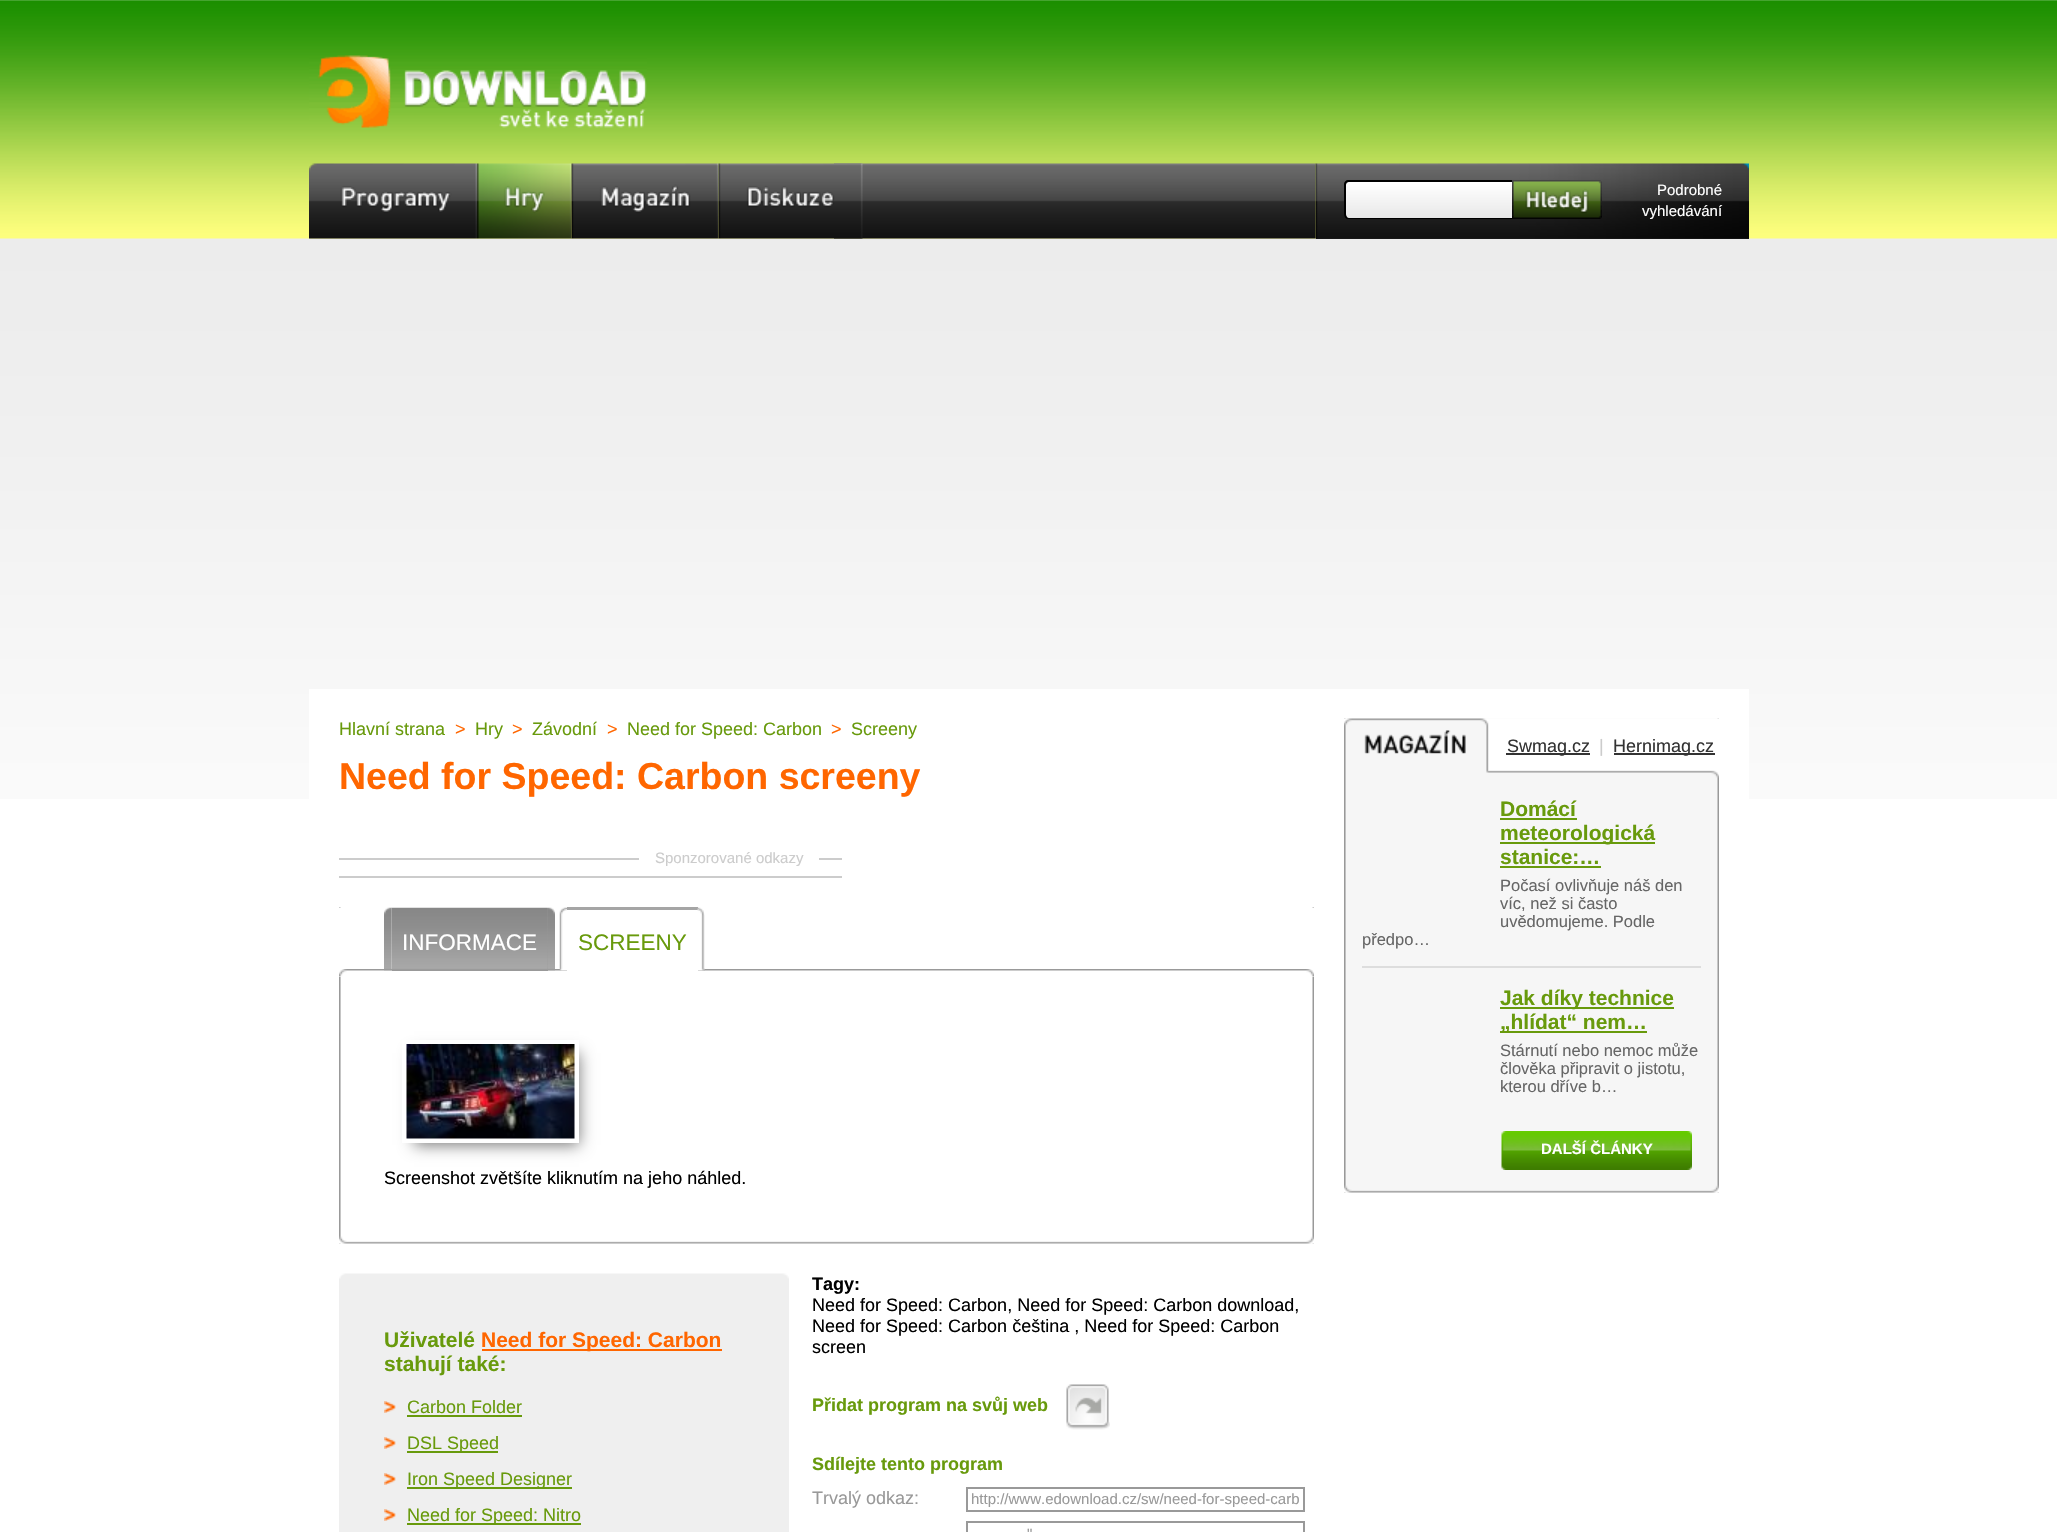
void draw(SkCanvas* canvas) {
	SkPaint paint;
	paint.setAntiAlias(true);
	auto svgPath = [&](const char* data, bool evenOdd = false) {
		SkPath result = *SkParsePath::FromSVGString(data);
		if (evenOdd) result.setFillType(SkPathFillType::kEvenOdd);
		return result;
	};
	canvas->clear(0xffffffff);
	canvas->drawImageRect(SkImages::DeferredFromEncodedData(SkData::MakeFromFileName("img1.png")), SkRect::MakeXYWH(0, 0, 2057, 799), SkSamplingOptions());
	canvas->drawImageRect(SkImages::DeferredFromEncodedData(SkData::MakeFromFileName("img2.png")), SkRect::MakeXYWH(309, 55, 338, 73), SkSamplingOptions());
	canvas->drawImageRect(SkImages::DeferredFromEncodedData(SkData::MakeFromFileName("img3.png")), SkRect::MakeXYWH(834, 163, 482, 76), SkSamplingOptions());
	canvas->drawImageRect(SkImages::DeferredFromEncodedData(SkData::MakeFromFileName("img4.png")), SkRect::MakeXYWH(309, 163, 168, 76), SkSamplingOptions());
	canvas->drawImageRect(SkImages::DeferredFromEncodedData(SkData::MakeFromFileName("img5.png")), SkRect::MakeXYWH(477, 163, 95, 76), SkSamplingOptions());
	canvas->drawImageRect(SkImages::DeferredFromEncodedData(SkData::MakeFromFileName("img6.png")), SkRect::MakeXYWH(571, 163, 148, 76), SkSamplingOptions());
	canvas->drawImageRect(SkImages::DeferredFromEncodedData(SkData::MakeFromFileName("img7.png")), SkRect::MakeXYWH(718, 163, 145, 76), SkSamplingOptions());
	paint.setColor(0xff1e1e1e);
	canvas->drawRect(SkRect::MakeXYWH(1316, 238, 433, 1), paint);
	canvas->drawImageRect(SkImages::DeferredFromEncodedData(SkData::MakeFromFileName("img8.png")), SkRect::MakeXYWH(1315, 163, 434, 76), SkSamplingOptions());
	{
		const SkColor colors[] = {0xffffffff, 0xffe8e8e8};
		const float stops[] = {0, 1};
		const SkPoint ends[] = {{1429, 182}, {1429, 218}};
		paint.setShader(SkGradientShader::MakeLinear(ends, colors, stops, 2, SkTileMode::kClamp));
		paint.setAlpha(255);
	}
	canvas->drawPath(svgPath("M1349 182H1512V218H1349C1347.5 218 1346 216.5 1346 215V185C1346 183.5 1347.5 182 1349 182Z"), paint);
	paint.setShader(nullptr);
	paint.setColor(0xff000000);
	canvas->drawPath(svgPath("M1348 180H1512V219H1348C1346 219 1344 217 1344 214V184C1344 182 1346 180 1348 180ZM1348 182H1512V218H1348C1347 218 1346 216 1346 214V184C1346 183 1347 182 1348 182Z", true), paint);
	canvas->drawImageRect(SkImages::DeferredFromEncodedData(SkData::MakeFromFileName("img9.png")), SkRect::MakeXYWH(1512, 180, 90, 39), SkSamplingOptions());
	SkFont f1(fontMgr->matchFamilyStyle("Liberation Sans", SkFontStyle::Normal()), 15);
	f1.setSubpixel(true);
	paint.setColor(0xffffffff);
	canvas->drawString("Podrobné", 1657, 195, f1, paint);
	canvas->drawString("vyhledávání", 1642, 216, f1, paint);
	canvas->drawRect(SkRect::MakeXYWH(309, 689, 1440, 110), paint);
	SkFont f2(fontMgr->matchFamilyStyle("Liberation Sans", SkFontStyle::Normal()), 18);
	f2.setSubpixel(true);
	paint.setColor(0xff689a0c);
	canvas->drawString("Hlavní strana", 339, 735, f2, paint);
	paint.setColor(0xffff6600);
	canvas->drawString(">", 455, 735, f2, paint);
	paint.setColor(0xff689a0c);
	canvas->drawString("Hry", 475, 735, f2, paint);
	paint.setColor(0xffff6600);
	canvas->drawString(">", 512, 735, f2, paint);
	paint.setColor(0xff689a0c);
	canvas->drawString("Závodní", 532, 735, f2, paint);
	paint.setColor(0xffff6600);
	canvas->drawString(">", 607, 735, f2, paint);
	paint.setColor(0xff689a0c);
	canvas->drawString("Need for Speed: Carbon", 627, 735, f2, paint);
	paint.setColor(0xffff6600);
	canvas->drawString(">", 831, 735, f2, paint);
	paint.setColor(0xff689a0c);
	canvas->drawString("Screeny", 851, 735, f2, paint);
	SkFont f3(fontMgr->matchFamilyStyle("Liberation Sans", SkFontStyle::Bold()), 37.5);
	f3.setSubpixel(true);
	paint.setColor(0xffff6600);
	canvas->drawString("Need for Speed: Carbon screeny", 339, 789, f3, paint);
	paint.setColor(0xffcccccc);
	canvas->drawRect(SkRect::MakeXYWH(339, 858, 503, 2), paint);
	canvas->drawRect(SkRect::MakeXYWH(339, 876, 503, 2), paint);
	paint.setColor(0xffffffff);
	canvas->drawRect(SkRect::MakeXYWH(639, 858, 180, 2), paint);
	paint.setColor(0xffcccccc);
	canvas->drawString("Sponzorované odkazy", 655, 863, f1, paint);
	canvas->drawImageRect(SkImages::DeferredFromEncodedData(SkData::MakeFromFileName("img10.png")), SkRect::MakeXYWH(339, 907, 975, 337), SkSamplingOptions());
	paint.setColor(0xffffffff);
	canvas->drawRect(SkRect::MakeXYWH(339, 908, 975, 69), paint);
	canvas->drawImageRect(SkImages::DeferredFromEncodedData(SkData::MakeFromFileName("img11.png")), SkRect::MakeXYWH(339, 969, 975, 8), SkSamplingOptions());
	canvas->drawImageRect(SkImages::DeferredFromEncodedData(SkData::MakeFromFileName("img12.png")), SkRect::MakeXYWH(384, 907, 8, 64), SkSamplingOptions());
	paint.setColor(0xff999999);
	canvas->drawRect(SkRect::MakeXYWH(392, 908, 156, 63), paint);
	canvas->drawImageRect(SkImages::DeferredFromEncodedData(SkData::MakeFromFileName("img13.png")), SkRect::MakeXYWH(391, 907, 157, 64), SkSamplingOptions());
	SkFont f4(fontMgr->matchFamilyStyle("Liberation Sans", SkFontStyle::Normal()), 22.5);
	f4.setSubpixel(true);
	paint.setColor(0xffffffff);
	canvas->drawString("INFORMACE", 402, 950, f4, paint);
	canvas->drawImageRect(SkImages::DeferredFromEncodedData(SkData::MakeFromFileName("img14.png")), SkRect::MakeXYWH(547, 907, 8, 64), SkSamplingOptions());
	canvas->drawImageRect(SkImages::DeferredFromEncodedData(SkData::MakeFromFileName("img15.png")), SkRect::MakeXYWH(559, 907, 8, 64), SkSamplingOptions());
	canvas->drawRect(SkRect::MakeXYWH(567, 969, 131, 2), paint);
	paint.setColor(0xffa5a5a5);
	canvas->drawRect(SkRect::MakeXYWH(567, 907, 131, 3), paint);
	paint.setColor(0xff689a0c);
	canvas->drawString("SCREENY", 578, 950, f4, paint);
	canvas->drawImageRect(SkImages::DeferredFromEncodedData(SkData::MakeFromFileName("img16.png")), SkRect::MakeXYWH(697, 907, 8, 64), SkSamplingOptions());
	canvas->save();
	canvas->clipPath(svgPath("M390 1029H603V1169H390ZM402 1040H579V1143H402Z", true), true);
	paint.setColor(0xff777777);
	paint.setMaskFilter(SkMaskFilter::MakeBlur(kNormal_SkBlurStyle, 7.5));
	canvas->drawRect(SkRect::MakeXYWH(414, 1053, 165, 92), paint);
	paint.setMaskFilter(nullptr);
	canvas->restore();
	canvas->drawImageRect(SkImages::DeferredFromEncodedData(SkData::MakeFromFileName("img17.png")), SkRect::MakeXYWH(406, 1044, 169, 95), SkSamplingOptions());
	paint.setColor(0xff000000);
	canvas->drawString("Screenshot zvětšíte kliknutím na jeho náhled.", 384, 1184, f2, paint);
	canvas->drawImageRect(SkImages::DeferredFromEncodedData(SkData::MakeFromFileName("img18.png")), SkRect::MakeXYWH(339, 1236, 975, 8), SkSamplingOptions());
	paint.setColor(0xffefefef);
	canvas->drawRect(SkRect::MakeXYWH(339, 1279, 450, 253), paint);
	canvas->drawImageRect(SkImages::DeferredFromEncodedData(SkData::MakeFromFileName("img19.png")), SkRect::MakeXYWH(339, 1273, 450, 6), SkSamplingOptions());
	SkFont f5(fontMgr->matchFamilyStyle("Liberation Sans", SkFontStyle::Bold()), 21);
	f5.setSubpixel(true);
	paint.setColor(0xff689a0c);
	canvas->drawString("Uživatelé", 384, 1347, f5, paint);
	paint.setColor(0xffff6600);
	canvas->drawRect(SkRect::MakeXYWH(482, 1349, 240, 2), paint);
	canvas->drawString("Need for Speed: Carbon", 481, 1347, f5, paint);
	paint.setColor(0xff689a0c);
	canvas->drawString("stahují také:", 384, 1371, f5, paint);
	canvas->drawImageRect(SkImages::DeferredFromEncodedData(SkData::MakeFromFileName("img20.png")), SkRect::MakeXYWH(384, 1401, 12, 12), SkSamplingOptions());
	canvas->drawString("Carbon Folder", 407, 1413, f2, paint);
	canvas->drawRect(SkRect::MakeXYWH(407, 1415, 115, 2), paint);
	canvas->drawImageRect(SkImages::DeferredFromEncodedData(SkData::MakeFromFileName("img20.png")), SkRect::MakeXYWH(384, 1437, 12, 12), SkSamplingOptions());
	canvas->drawRect(SkRect::MakeXYWH(407, 1451, 91, 2), paint);
	canvas->drawString("DSL Speed", 407, 1449, f2, paint);
	canvas->drawImageRect(SkImages::DeferredFromEncodedData(SkData::MakeFromFileName("img20.png")), SkRect::MakeXYWH(384, 1473, 12, 12), SkSamplingOptions());
	canvas->drawRect(SkRect::MakeXYWH(407, 1487, 165, 2), paint);
	canvas->drawString("Iron Speed Designer", 407, 1485, f2, paint);
	canvas->drawImageRect(SkImages::DeferredFromEncodedData(SkData::MakeFromFileName("img20.png")), SkRect::MakeXYWH(384, 1509, 12, 12), SkSamplingOptions());
	canvas->drawRect(SkRect::MakeXYWH(407, 1523, 174, 2), paint);
	canvas->drawString("Need for Speed: Nitro", 407, 1521, f2, paint);
	SkFont f6(fontMgr->matchFamilyStyle("Liberation Sans", SkFontStyle::Bold()), 18);
	f6.setSubpixel(true);
	paint.setColor(0xff000000);
	canvas->drawString("Tagy:", 812, 1290, f6, paint);
	canvas->drawString("Need for Speed: Carbon, Need for Speed: Carbon download,", 812, 1311, f2, paint);
	canvas->drawString("Need for Speed: Carbon čeština , Need for Speed: Carbon", 812, 1332, f2, paint);
	canvas->drawString("screen", 812, 1353, f2, paint);
	paint.setColor(0xff689a0c);
	canvas->drawString("Přidat program na svůj web", 812, 1411, f6, paint);
	canvas->drawImageRect(SkImages::DeferredFromEncodedData(SkData::MakeFromFileName("img21.png")), SkRect::MakeXYWH(1066, 1384, 44, 46), SkSamplingOptions());
	canvas->drawString("Sdílejte tento program", 812, 1470, f6, paint);
	paint.setColor(0xff999999);
	canvas->drawString("Trvalý odkaz:", 812, 1504, f2, paint);
	paint.setStroke(true);
	paint.setStrokeWidth(2);
	canvas->drawRect(SkRect::MakeXYWH(967, 1488, 337, 23), paint);
	paint.setStroke(false);
	canvas->drawString("http://www.edownload.cz/sw/need-for-speed-carb", 971, 1504, f1, paint);
	paint.setStroke(true);
	canvas->drawRect(SkRect::MakeXYWH(967, 1522, 337, 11), paint);
	paint.setStroke(false);
	canvas->drawString("\"", 1027, 1539, f1, paint);
	canvas->drawImageRect(SkImages::DeferredFromEncodedData(SkData::MakeFromFileName("img22.png")), SkRect::MakeXYWH(1344, 718, 375, 475), SkSamplingOptions());
	canvas->drawImageRect(SkImages::DeferredFromEncodedData(SkData::MakeFromFileName("img23.png")), SkRect::MakeXYWH(1344, 718, 375, 60), SkSamplingOptions());
	paint.setColor(0xff333333);
	canvas->drawRect(SkRect::MakeXYWH(1506, 753, 84, 2), paint);
	canvas->drawString("Swmag.cz", 1507, 752, f2, paint);
	paint.setColor(0xffcccccc);
	canvas->drawString("|", 1599, 752, f2, paint);
	paint.setColor(0xff333333);
	canvas->drawRect(SkRect::MakeXYWH(1614, 753, 101, 2), paint);
	canvas->drawString("Hernimag.cz", 1613, 752, f2, paint);
	paint.setColor(0xffdddddd);
	canvas->drawRect(SkRect::MakeXYWH(1362, 966, 339, 2), paint);
	paint.setColor(0xff689a0c);
	canvas->drawString("Domácí", 1500, 816, f5, paint);
	canvas->drawRect(SkRect::MakeXYWH(1500, 818, 77, 2), paint);
	canvas->drawRect(SkRect::MakeXYWH(1500, 842, 155, 2), paint);
	canvas->drawString("meteorologická", 1500, 840, f5, paint);
	canvas->drawString("stanice:…", 1500, 864, f5, paint);
	canvas->drawRect(SkRect::MakeXYWH(1500, 866, 101, 2), paint);
	SkFont f7(fontMgr->matchFamilyStyle("Liberation Sans", SkFontStyle::Normal()), 16.5);
	f7.setSubpixel(true);
	paint.setColor(0xff666666);
	canvas->drawString("Počasí ovlivňuje náš den", 1500, 891, f7, paint);
	canvas->drawString("víc, než si často", 1500, 909, f7, paint);
	canvas->drawString("uvědomujeme. Podle", 1500, 927, f7, paint);
	canvas->drawString("předpo…", 1362, 945, f7, paint);
	paint.setColor(0xff689a0c);
	canvas->drawRect(SkRect::MakeXYWH(1500, 1007, 174, 2), paint);
	canvas->drawString("Jak díky technice", 1500, 1005, f5, paint);
	canvas->drawRect(SkRect::MakeXYWH(1500, 1031, 147, 2), paint);
	canvas->drawString("„hlídat“ nem…", 1500, 1029, f5, paint);
	paint.setColor(0xff666666);
	canvas->drawString("Stárnutí nebo nemoc může", 1500, 1056, f7, paint);
	canvas->drawString("člověka připravit o jistotu,", 1500, 1074, f7, paint);
	canvas->drawString("kterou dříve b…", 1500, 1092, f7, paint);
	canvas->drawImageRect(SkImages::DeferredFromEncodedData(SkData::MakeFromFileName("img24.png")), SkRect::MakeXYWH(1501, 1131, 191, 39), SkSamplingOptions());
	SkFont f8(fontMgr->matchFamilyStyle("Liberation Sans", SkFontStyle::Bold()), 15);
	f8.setSubpixel(true);
	paint.setColor(0xffffffff);
	canvas->drawString("DALŠÍ ČLÁNKY", 1541, 1154, f8, paint);
	canvas->drawImageRect(SkImages::DeferredFromEncodedData(SkData::MakeFromFileName("img25.png")), SkRect::MakeXYWH(1344, 1185, 375, 8), SkSamplingOptions());
}
